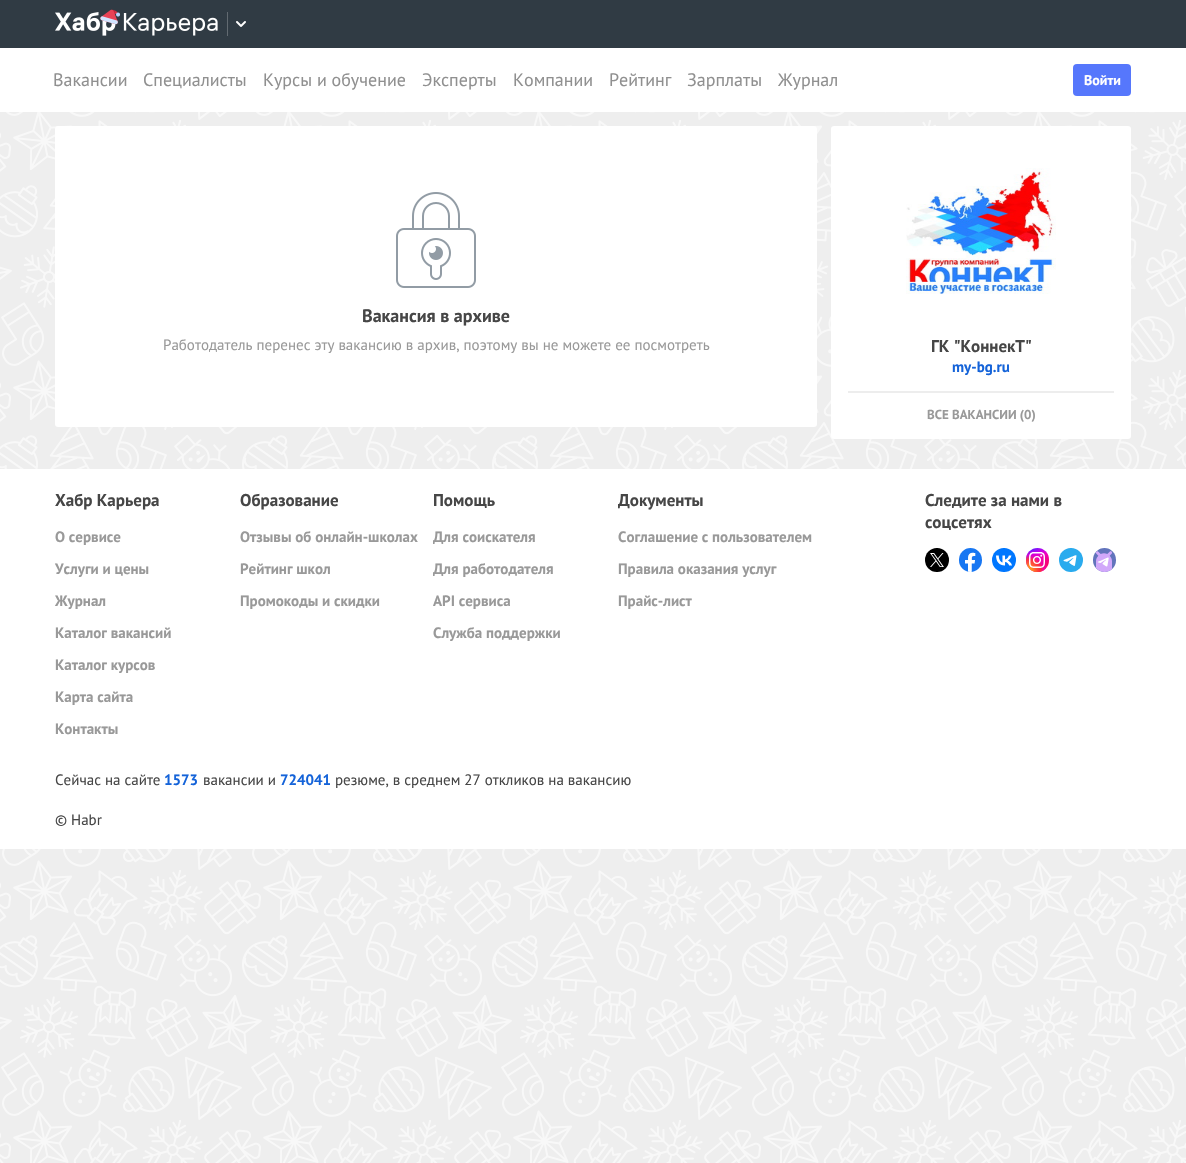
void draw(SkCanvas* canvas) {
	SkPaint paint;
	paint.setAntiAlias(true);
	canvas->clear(0xffeeeeee);
	canvas->drawImageRect(SkImages::DeferredFromEncodedData(SkData::MakeFromFileName("img1.png")), SkRect::MakeXYWH(0, 112, 1186, 1051), SkSamplingOptions());
	paint.setColor(0xff303b44);
	canvas->drawRect(SkRect::MakeXYWH(0, 0, 1186, 48), paint);
	canvas->drawImageRect(SkImages::DeferredFromEncodedData(SkData::MakeFromFileName("img2.png")), SkRect::MakeXYWH(55, 9, 163, 27), SkSamplingOptions());
	paint.setColor(0xff626a71);
	canvas->drawRect(SkRect::MakeXYWH(227, 12, 1, 24), paint);
	canvas->drawImageRect(SkImages::DeferredFromEncodedData(SkData::MakeFromFileName("img3.png")), SkRect::MakeXYWH(236, 21, 10, 6), SkSamplingOptions());
	paint.setColor(0xffffffff);
	canvas->drawRect(SkRect::MakeXYWH(0, 48, 1186, 64), paint);
	SkFont f1(fontMgr->matchFamilyStyle("PT Sans", SkFontStyle::Normal()), 18);
	f1.setSubpixel(true);
	paint.setColor(0xff909090);
	canvas->drawString("Вакансии", 53, 86, f1, paint);
	canvas->drawString("Специалисты", 143, 86, f1, paint);
	canvas->drawString("Курсы и обучение", 263, 86, f1, paint);
	canvas->drawString("Эксперты", 422, 86, f1, paint);
	canvas->drawString("Компании", 513, 86, f1, paint);
	canvas->drawString("Рейтинг", 609, 86, f1, paint);
	canvas->drawString("Зарплаты", 687, 86, f1, paint);
	canvas->drawString("Журнал", 778, 86, f1, paint);
	paint.setColor(0xff5677fc);
	canvas->drawRoundRect(SkRect::MakeXYWH(1073, 64, 58, 32), 4, 4, paint);
	SkFont f2(fontMgr->matchFamilyStyle("PT Sans", SkFontStyle::Bold()), 14);
	f2.setSubpixel(true);
	paint.setColor(0xffffffff);
	canvas->drawString("Войти", 1084, 85, f2, paint);
	canvas->drawRoundRect(SkRect::MakeXYWH(55, 126, 762, 301), 3, 3, paint);
	canvas->drawImageRect(SkImages::DeferredFromEncodedData(SkData::MakeFromFileName("img4.png")), SkRect::MakeXYWH(396, 192, 80, 96), SkSamplingOptions());
	SkFont f3(fontMgr->matchFamilyStyle("PT Sans", SkFontStyle::Bold()), 18);
	f3.setSubpixel(true);
	paint.setColor(0xff464646);
	canvas->drawString("Вакансия в архиве", 362, 322, f3, paint);
	SkFont f4(fontMgr->matchFamilyStyle("PT Sans", SkFontStyle::Normal()), 15);
	f4.setSubpixel(true);
	paint.setColor(0xff999999);
	canvas->drawString("Работодатель перенес эту вакансию в архив, поэтому вы не можете ее посмотреть", 163, 350, f4, paint);
	paint.setColor(0xffffffff);
	canvas->drawRoundRect(SkRect::MakeXYWH(831, 126, 300, 313), 3, 3, paint);
	canvas->drawImageRect(SkImages::DeferredFromEncodedData(SkData::MakeFromFileName("img5.png")), SkRect::MakeXYWH(906, 168, 150, 126), SkSamplingOptions());
	SkFont f5(fontMgr->matchFamilyStyle("PT Sans", SkFontStyle::Bold()), 17);
	f5.setSubpixel(true);
	paint.setColor(0xff464646);
	canvas->drawString("ГК \"КоннекТ\"", 931, 352, f5, paint);
	SkFont f6(fontMgr->matchFamilyStyle("PT Sans", SkFontStyle::Bold()), 15);
	f6.setSubpixel(true);
	paint.setColor(0xff1463d9);
	canvas->drawString("my-bg.ru", 952, 372, f6, paint);
	paint.setColor(0xffededed);
	canvas->drawRect(SkRect::MakeXYWH(848, 391, 266, 2), paint);
	SkFont f7(fontMgr->matchFamilyStyle("PT Sans", SkFontStyle::Bold()), 13);
	f7.setSubpixel(true);
	paint.setColor(0xff999999);
	canvas->drawString("ВСЕ ВАКАНСИИ (0)", 927, 419, f7, paint);
	paint.setColor(0xffffffff);
	canvas->drawRect(SkRect::MakeXYWH(0, 469, 1186, 380), paint);
	paint.setColor(0xff464646);
	canvas->drawString("Хабр Карьера", 55, 506, f5, paint);
	paint.setColor(0xff999999);
	canvas->drawString("О сервисе", 55, 542, f6, paint);
	canvas->drawString("Услуги и цены", 55, 574, f6, paint);
	canvas->drawString("Журнал", 55, 606, f6, paint);
	canvas->drawString("Каталог вакансий", 55, 638, f6, paint);
	canvas->drawString("Каталог курсов", 55, 670, f6, paint);
	canvas->drawString("Карта сайта", 55, 702, f6, paint);
	canvas->drawString("Контакты", 55, 734, f6, paint);
	paint.setColor(0xff464646);
	canvas->drawString("Образование", 240, 506, f5, paint);
	paint.setColor(0xff999999);
	canvas->drawString("Отзывы об онлайн-школах", 240, 542, f6, paint);
	canvas->drawString("Рейтинг школ", 240, 574, f6, paint);
	canvas->drawString("Промокоды и скидки", 240, 606, f6, paint);
	paint.setColor(0xff464646);
	canvas->drawString("Помощь", 433, 506, f5, paint);
	paint.setColor(0xff999999);
	canvas->drawString("Для соискателя", 433, 542, f6, paint);
	canvas->drawString("Для работодателя", 433, 574, f6, paint);
	canvas->drawString("API сервиса", 433, 606, f6, paint);
	canvas->drawString("Служба поддержки", 433, 638, f6, paint);
	paint.setColor(0xff464646);
	canvas->drawString("Документы", 618, 506, f5, paint);
	paint.setColor(0xff999999);
	canvas->drawString("Соглашение с пользователем", 618, 542, f6, paint);
	canvas->drawString("Правила оказания услуг", 618, 574, f6, paint);
	canvas->drawString("Прайс-лист", 618, 606, f6, paint);
	paint.setColor(0xff464646);
	canvas->drawString("Следите за нами в", 925, 506, f5, paint);
	canvas->drawString("соцсетях", 925, 528, f5, paint);
	canvas->drawImageRect(SkImages::DeferredFromEncodedData(SkData::MakeFromFileName("img6.png")), SkRect::MakeXYWH(925, 548, 24, 24), SkSamplingOptions());
	canvas->drawImageRect(SkImages::DeferredFromEncodedData(SkData::MakeFromFileName("img7.png")), SkRect::MakeXYWH(959, 548, 23, 24), SkSamplingOptions());
	canvas->drawImageRect(SkImages::DeferredFromEncodedData(SkData::MakeFromFileName("img8.png")), SkRect::MakeXYWH(992, 548, 24, 24), SkSamplingOptions());
	{
		const SkColor colors[] = {0xffff1b90, 0xfff80261, 0xffed00c0, 0xffc500e9, 0xff7017ff};
		const float stops[] = {0.24, 0.44, 0.69, 0.78, 0.89};
		paint.setShader(SkGradientShader::MakeRadial({1053, 583}, 44, colors, stops, 5, SkTileMode::kClamp));
		paint.setAlpha(255);
	}
	canvas->drawRoundRect(SkRect::MakeXYWH(1026, 548, 23, 24), 11.5, 11.5, paint);
	{
		const SkColor colors[] = {0xffffd600, 0xffff6930, 0xe0fe3b36, 0xa1fe3b36, 0xb3ed00c0, 0x00ed00c0};
		const float stops[] = {0, 0.32, 0.54, 0.62, 0.74, 1};
		paint.setShader(SkGradientShader::MakeRadial({1028, 571}, 21, colors, stops, 6, SkTileMode::kClamp));
		paint.setAlpha(255);
	}
	canvas->drawRoundRect(SkRect::MakeXYWH(1026, 548, 23, 24), 11.5, 11.5, paint);
	canvas->drawImageRect(SkImages::DeferredFromEncodedData(SkData::MakeFromFileName("img9.png")), SkRect::MakeXYWH(1029, 552, 16, 16), SkSamplingOptions());
	canvas->drawImageRect(SkImages::DeferredFromEncodedData(SkData::MakeFromFileName("img10.png")), SkRect::MakeXYWH(1059, 548, 24, 24), SkSamplingOptions());
	canvas->drawImageRect(SkImages::DeferredFromEncodedData(SkData::MakeFromFileName("img11.png")), SkRect::MakeXYWH(1093, 548, 23, 24), SkSamplingOptions());
	paint.setShader(nullptr);
	paint.setColor(0xff464646);
	canvas->drawString("Сейчас на сайте", 55, 785, f4, paint);
	paint.setColor(0xff1463d9);
	canvas->drawString("1573", 164, 785, f6, paint);
	paint.setColor(0xff464646);
	canvas->drawString("вакансии и", 203, 785, f4, paint);
	paint.setColor(0xff1463d9);
	canvas->drawString("724041", 280, 785, f6, paint);
	paint.setColor(0xff464646);
	canvas->drawString("резюме, в среднем 27 откликов на вакансию", 335, 785, f4, paint);
	canvas->drawString("© Habr", 55, 825, f4, paint);
}
